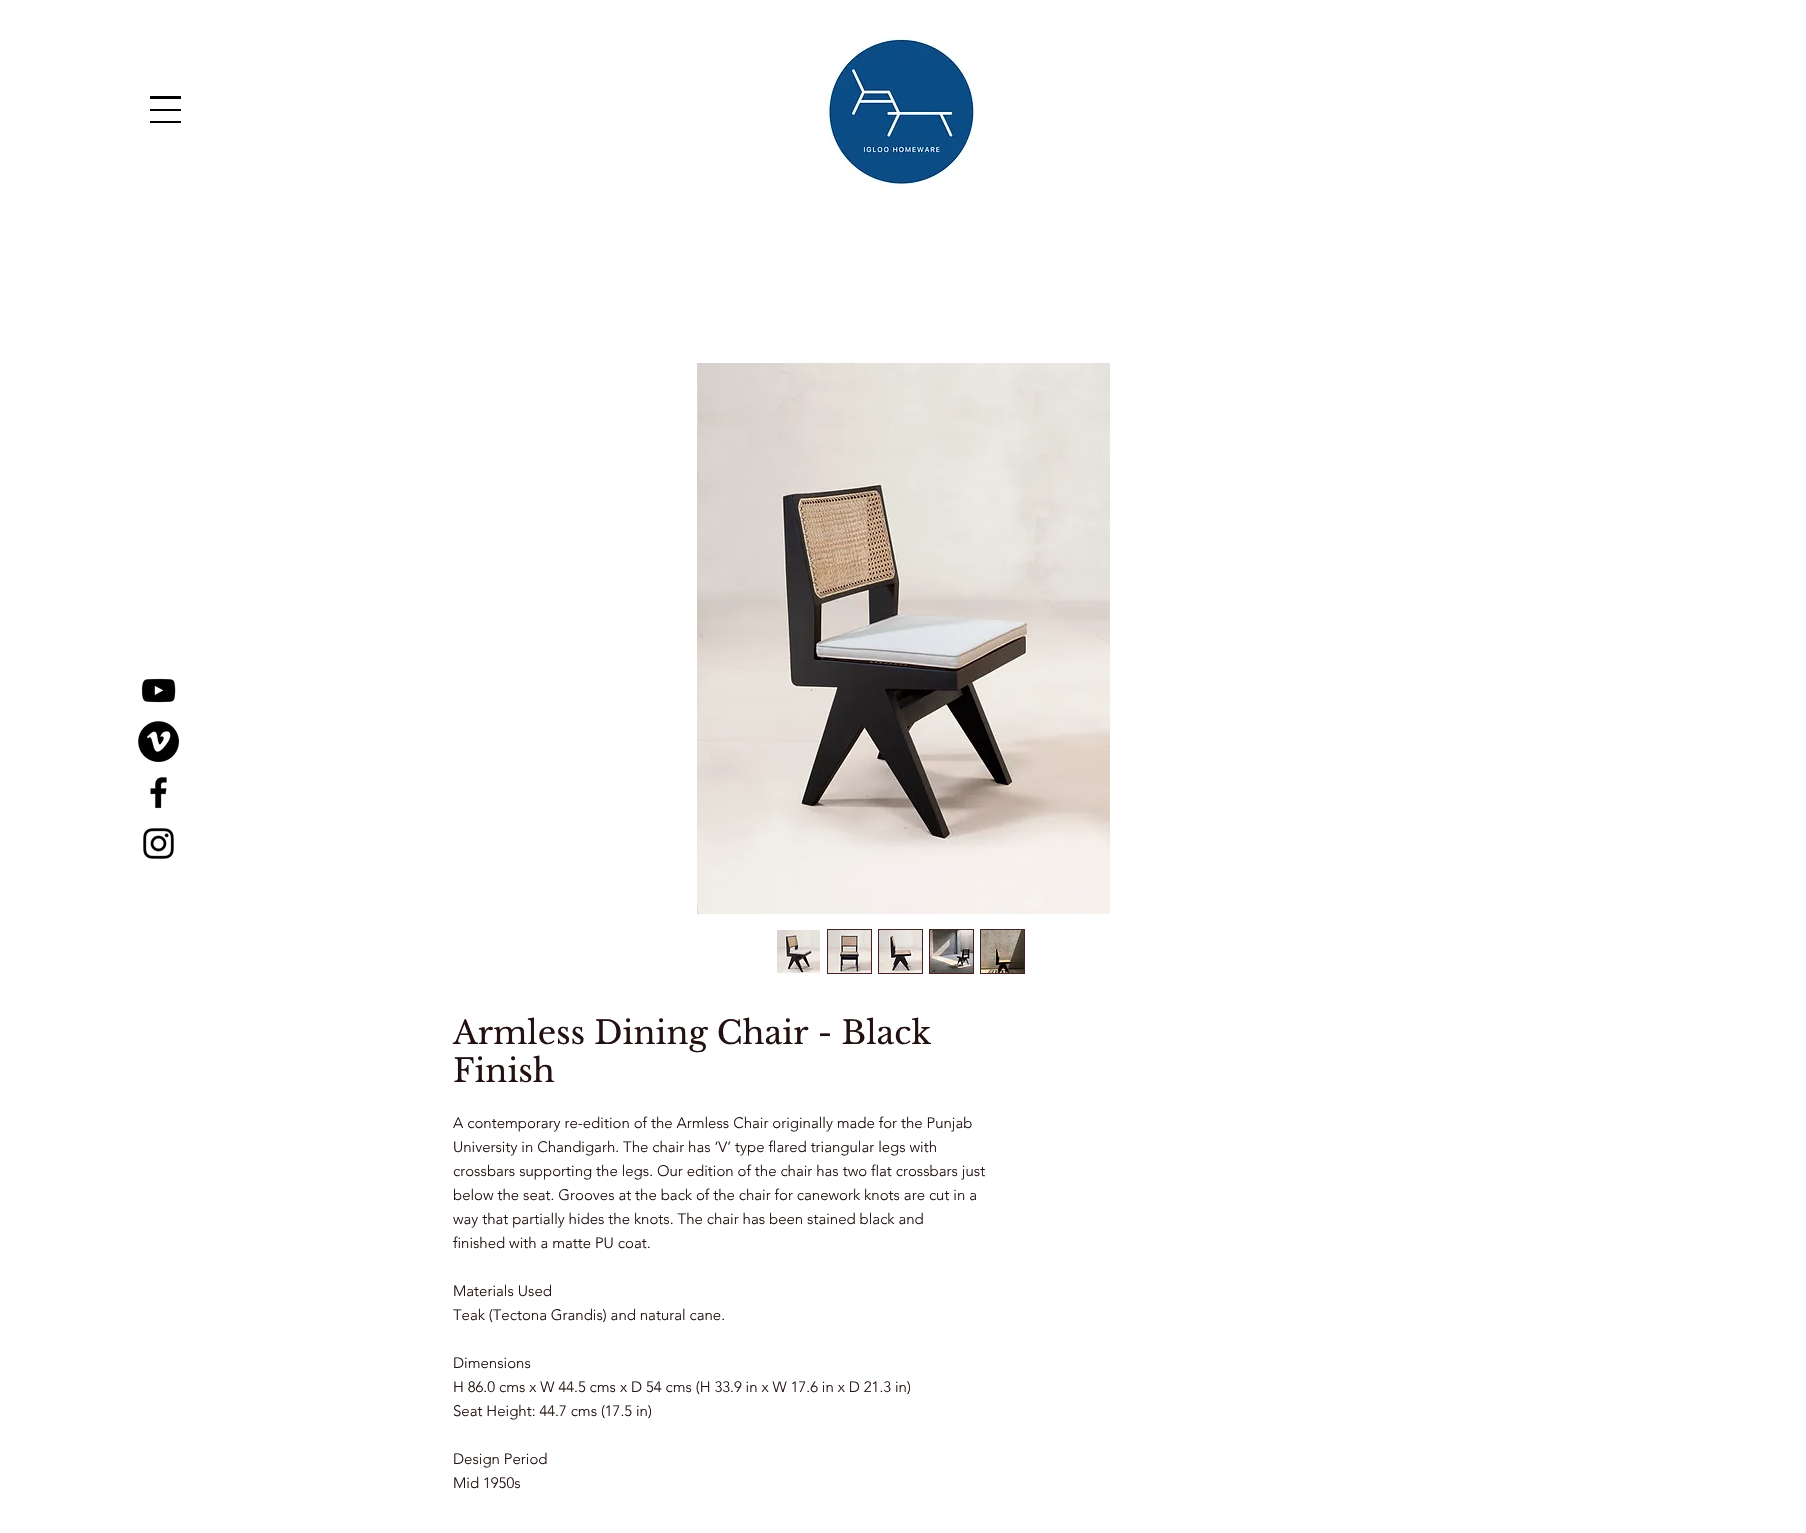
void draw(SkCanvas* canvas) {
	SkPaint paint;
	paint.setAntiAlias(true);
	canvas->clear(0xffffffff);
	paint.setColor(0xff000000);
	canvas->drawRect(SkRect::MakeXYWH(150, 96, 31, 3), paint);
	canvas->drawRect(SkRect::MakeXYWH(150, 109, 31, 2), paint);
	canvas->drawRect(SkRect::MakeXYWH(150, 121, 31, 2), paint);
	canvas->drawImageRect(SkImages::DeferredFromEncodedData(SkData::MakeFromFileName("img1.png")), SkRect::MakeXYWH(827, 36, 152, 152), SkSamplingOptions());
	canvas->drawImageRect(SkImages::DeferredFromEncodedData(SkData::MakeFromFileName("img2.png")), SkRect::MakeXYWH(141, 678, 35, 25), SkSamplingOptions());
	canvas->drawImageRect(SkImages::DeferredFromEncodedData(SkData::MakeFromFileName("img3.png")), SkRect::MakeXYWH(138, 721, 41, 41), SkSamplingOptions());
	canvas->drawImageRect(SkImages::DeferredFromEncodedData(SkData::MakeFromFileName("img4.png")), SkRect::MakeXYWH(150, 777, 17, 32), SkSamplingOptions());
	canvas->drawImageRect(SkImages::DeferredFromEncodedData(SkData::MakeFromFileName("img5.png")), SkRect::MakeXYWH(143, 828, 31, 31), SkSamplingOptions());
	canvas->drawImageRect(SkImages::DeferredFromEncodedData(SkData::MakeFromFileName("img6.png")), SkRect::MakeXYWH(697, 363, 413, 551), SkSamplingOptions());
	canvas->drawImageRect(SkImages::DeferredFromEncodedData(SkData::MakeFromFileName("img7.png")), SkRect::MakeXYWH(777, 930, 43, 43), SkSamplingOptions());
	paint.setStroke(true);
	paint.setStrokeWidth(1);
	paint.setColor(0xff452222);
	canvas->drawRect(SkRect::MakeXYWH(827.5, 929.5, 44, 44), paint);
	canvas->drawImageRect(SkImages::DeferredFromEncodedData(SkData::MakeFromFileName("img8.png")), SkRect::MakeXYWH(828, 930, 43, 43), SkSamplingOptions());
	canvas->drawRect(SkRect::MakeXYWH(878.5, 929.5, 44, 44), paint);
	canvas->drawImageRect(SkImages::DeferredFromEncodedData(SkData::MakeFromFileName("img9.png")), SkRect::MakeXYWH(879, 930, 43, 43), SkSamplingOptions());
	canvas->drawRect(SkRect::MakeXYWH(929.5, 929.5, 44, 44), paint);
	canvas->drawImageRect(SkImages::DeferredFromEncodedData(SkData::MakeFromFileName("img10.png")), SkRect::MakeXYWH(930, 930, 43, 43), SkSamplingOptions());
	canvas->drawRect(SkRect::MakeXYWH(980.5, 929.5, 44, 44), paint);
	canvas->drawImageRect(SkImages::DeferredFromEncodedData(SkData::MakeFromFileName("img11.png")), SkRect::MakeXYWH(981, 930, 43, 43), SkSamplingOptions());
	SkFont f1(fontMgr->matchFamilyStyle("Libre Baskerville", SkFontStyle::Normal()), 32);
	f1.setSubpixel(true);
	paint.setStroke(false);
	paint.setColor(0xff231111);
	canvas->drawString("Armless Dining Chair - Black", 453, 1044, f1, paint);
	canvas->drawString("Finish", 453, 1082, f1, paint);
	SkFont f2(fontMgr->matchFamilyStyle("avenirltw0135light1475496", SkFontStyle(300, SkFontStyle::kNormal_Width, SkFontStyle::kUpright_Slant)), 15);
	f2.setSubpixel(true);
	canvas->drawString("A contemporary re-edition of the Armless Chair originally made for the Punjab", 453, 1128, f2, paint);
	canvas->drawString("University in Chandigarh. The chair has ‘V’ type flared triangular legs with", 453, 1152, f2, paint);
	canvas->drawString("crossbars supporting the legs. Our edition of the chair has two flat crossbars just", 453, 1176, f2, paint);
	canvas->drawString("below the seat. Grooves at the back of the chair for canework knots are cut in a", 453, 1200, f2, paint);
	canvas->drawString("way that partially hides the knots. The chair has been stained black and", 453, 1224, f2, paint);
	canvas->drawString("finished with a matte PU coat.", 453, 1248, f2, paint);
	canvas->drawString("Materials Used", 453, 1296, f2, paint);
	canvas->drawString("Teak (Tectona Grandis) and natural cane.", 453, 1320, f2, paint);
	canvas->drawString("Dimensions", 453, 1368, f2, paint);
	canvas->drawString("H 86.0 cms x W 44.5 cms x D 54 cms (H 33.9 in x W 17.6 in x D 21.3 in)", 453, 1392, f2, paint);
	canvas->drawString("Seat Height: 44.7 cms (17.5 in)", 453, 1416, f2, paint);
	canvas->drawString("Design Period", 453, 1464, f2, paint);
	canvas->drawString("Mid 1950s", 453, 1488, f2, paint);
}
